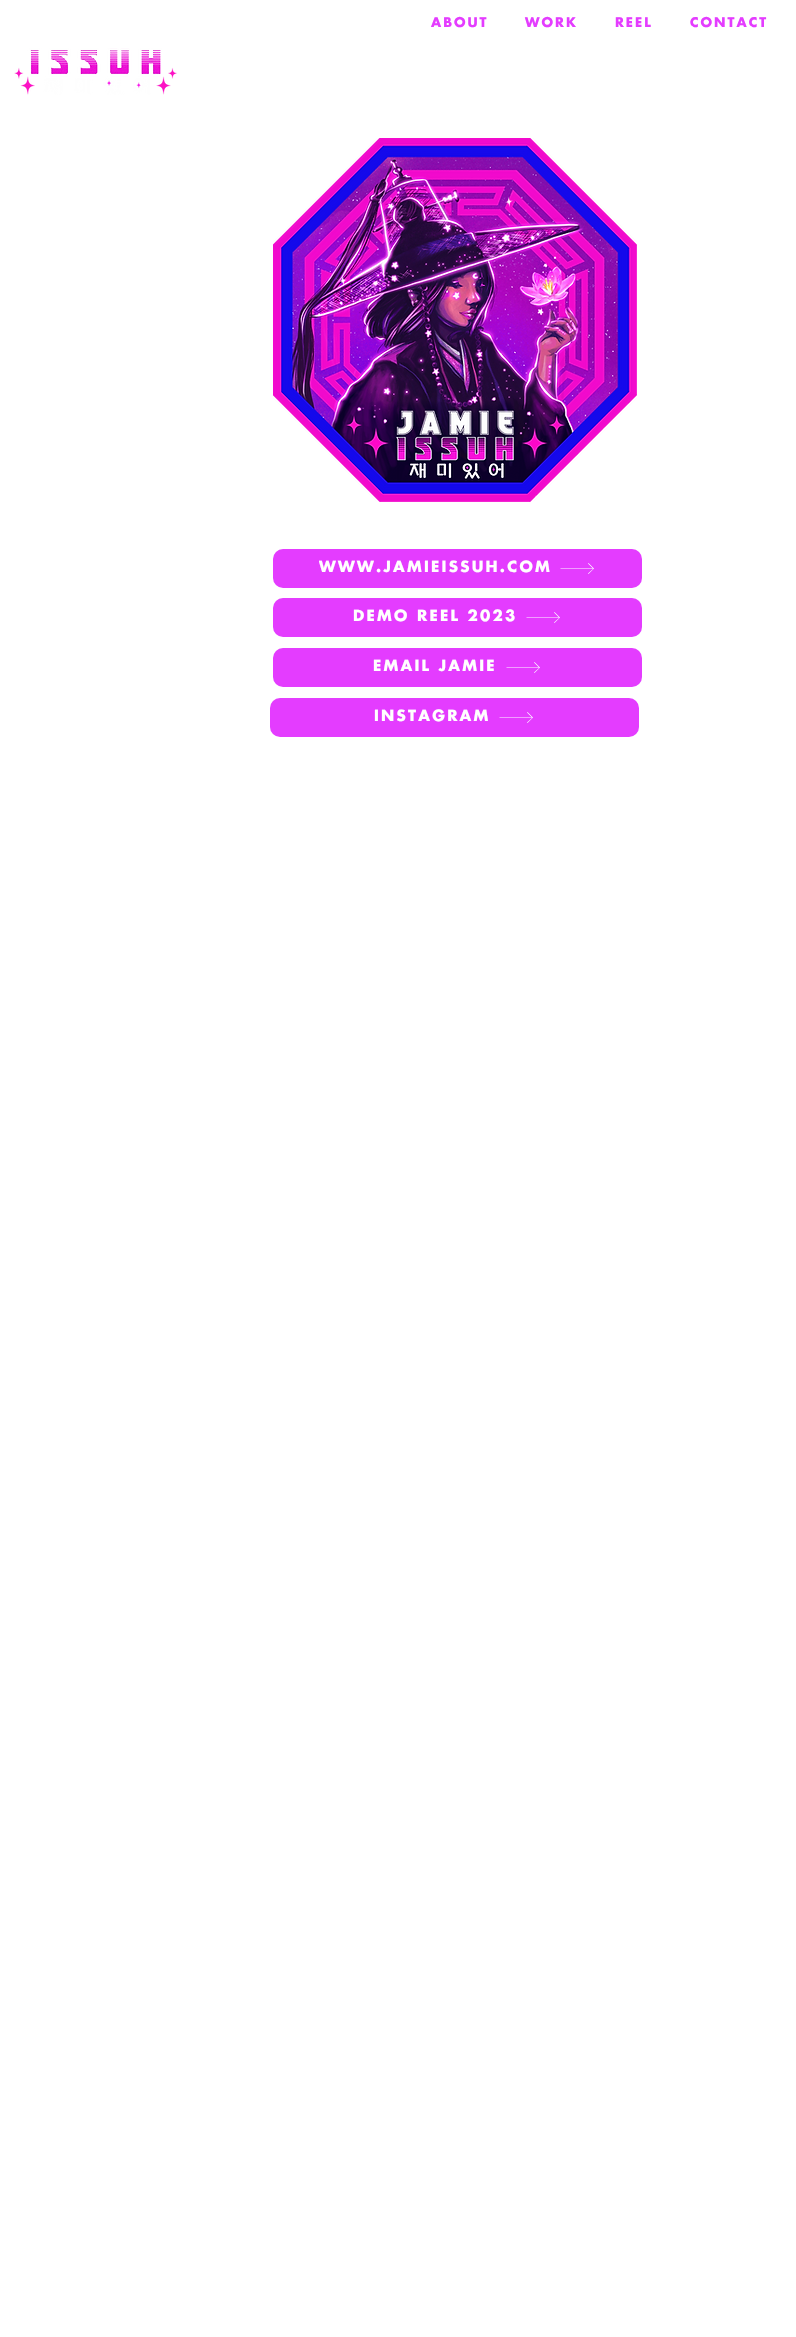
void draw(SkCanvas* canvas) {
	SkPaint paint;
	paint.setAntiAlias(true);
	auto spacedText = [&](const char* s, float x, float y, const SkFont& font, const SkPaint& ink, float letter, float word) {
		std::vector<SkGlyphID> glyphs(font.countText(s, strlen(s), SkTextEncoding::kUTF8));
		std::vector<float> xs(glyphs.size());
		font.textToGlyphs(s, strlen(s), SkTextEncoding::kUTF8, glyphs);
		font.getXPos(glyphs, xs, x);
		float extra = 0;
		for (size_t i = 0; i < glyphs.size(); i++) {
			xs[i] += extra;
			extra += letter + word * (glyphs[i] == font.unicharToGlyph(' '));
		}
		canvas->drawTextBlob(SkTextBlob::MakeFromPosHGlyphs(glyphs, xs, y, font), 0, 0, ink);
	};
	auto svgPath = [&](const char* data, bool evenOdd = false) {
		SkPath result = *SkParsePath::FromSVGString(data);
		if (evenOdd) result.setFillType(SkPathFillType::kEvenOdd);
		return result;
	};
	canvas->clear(0xffffffff);
	SkFont f1(fontMgr->matchFamilyStyle("Futura", SkFontStyle::Bold()), 13);
	f1.setSubpixel(true);
	paint.setColor(0xffe43cff);
	spacedText("ABOUT", 431, 27, f1, paint, 2, 0);
	spacedText("WORK", 525, 27, f1, paint, 2, 0);
	spacedText("REEL", 615, 27, f1, paint, 2, 0);
	spacedText("CONTACT", 690, 27, f1, paint, 2, 0);
	canvas->drawImageRect(SkImages::DeferredFromEncodedData(SkData::MakeFromFileName("img1.png")), SkRect::MakeXYWH(14, 48, 163, 47), SkSamplingOptions());
	canvas->drawImageRect(SkImages::DeferredFromEncodedData(SkData::MakeFromFileName("img2.png")), SkRect::MakeXYWH(273, 138, 364, 364), SkSamplingOptions());
	canvas->drawImageRect(SkImages::DeferredFromEncodedData(SkData::MakeFromFileName("img3.png")), SkRect::MakeXYWH(502, 192, 31, 40), SkSamplingOptions());
	canvas->drawImageRect(SkImages::DeferredFromEncodedData(SkData::MakeFromFileName("img4.png")), SkRect::MakeXYWH(336, 271, 31, 40), SkSamplingOptions());
	canvas->drawRoundRect(SkRect::MakeXYWH(273, 549, 369, 39), 10, 10, paint);
	canvas->save();
	canvas->clipRect(SkRect::MakeXYWH(319, 559, 232, 19));
	SkFont f2(fontMgr->matchFamilyStyle("Futura", SkFontStyle::Bold()), 15);
	f2.setSubpixel(true);
	paint.setColor(0xffffffff);
	spacedText("WWW.JAMIEISSUH.COM", 319, 572, f2, paint, 2.25, 0);
	canvas->restore();
	canvas->drawPath(svgPath("M588.5 563L588 563.5L593 568.5H560.5V569H593L588 573.5L588.5 574L594 568.5Z"), paint);
	paint.setColor(0xffe43cff);
	canvas->drawRoundRect(SkRect::MakeXYWH(273, 598, 369, 39), 10, 10, paint);
	paint.setColor(0xffffffff);
	spacedText("DEMO REEL 2023", 353, 621, f2, paint, 2.25, 0);
	canvas->drawPath(svgPath("M554.5 612L554 612.5L559 617.5H526.5V618H559L554 622.5L554.5 623L560 617.5Z"), paint);
	paint.setColor(0xffe43cff);
	canvas->drawRoundRect(SkRect::MakeXYWH(273, 648, 369, 39), 10, 10, paint);
	paint.setColor(0xffffffff);
	spacedText("EMAIL JAMIE", 373, 671, f2, paint, 2.25, 0);
	canvas->drawPath(svgPath("M534.5 662L534 662.5L539 667.5H506.5V668H539L534 672.5L534.5 673L540 667.5Z"), paint);
	paint.setColor(0xffe43cff);
	canvas->drawRoundRect(SkRect::MakeXYWH(270, 698, 369, 39), 10, 10, paint);
	paint.setColor(0xffffffff);
	spacedText("INSTAGRAM", 374, 721, f2, paint, 2.25, 0);
	canvas->drawPath(svgPath("M527.5 712L527 712.5L532 717.5H499.5V718H532L527 722.5L527.5 723L533 717.5Z"), paint);
}
